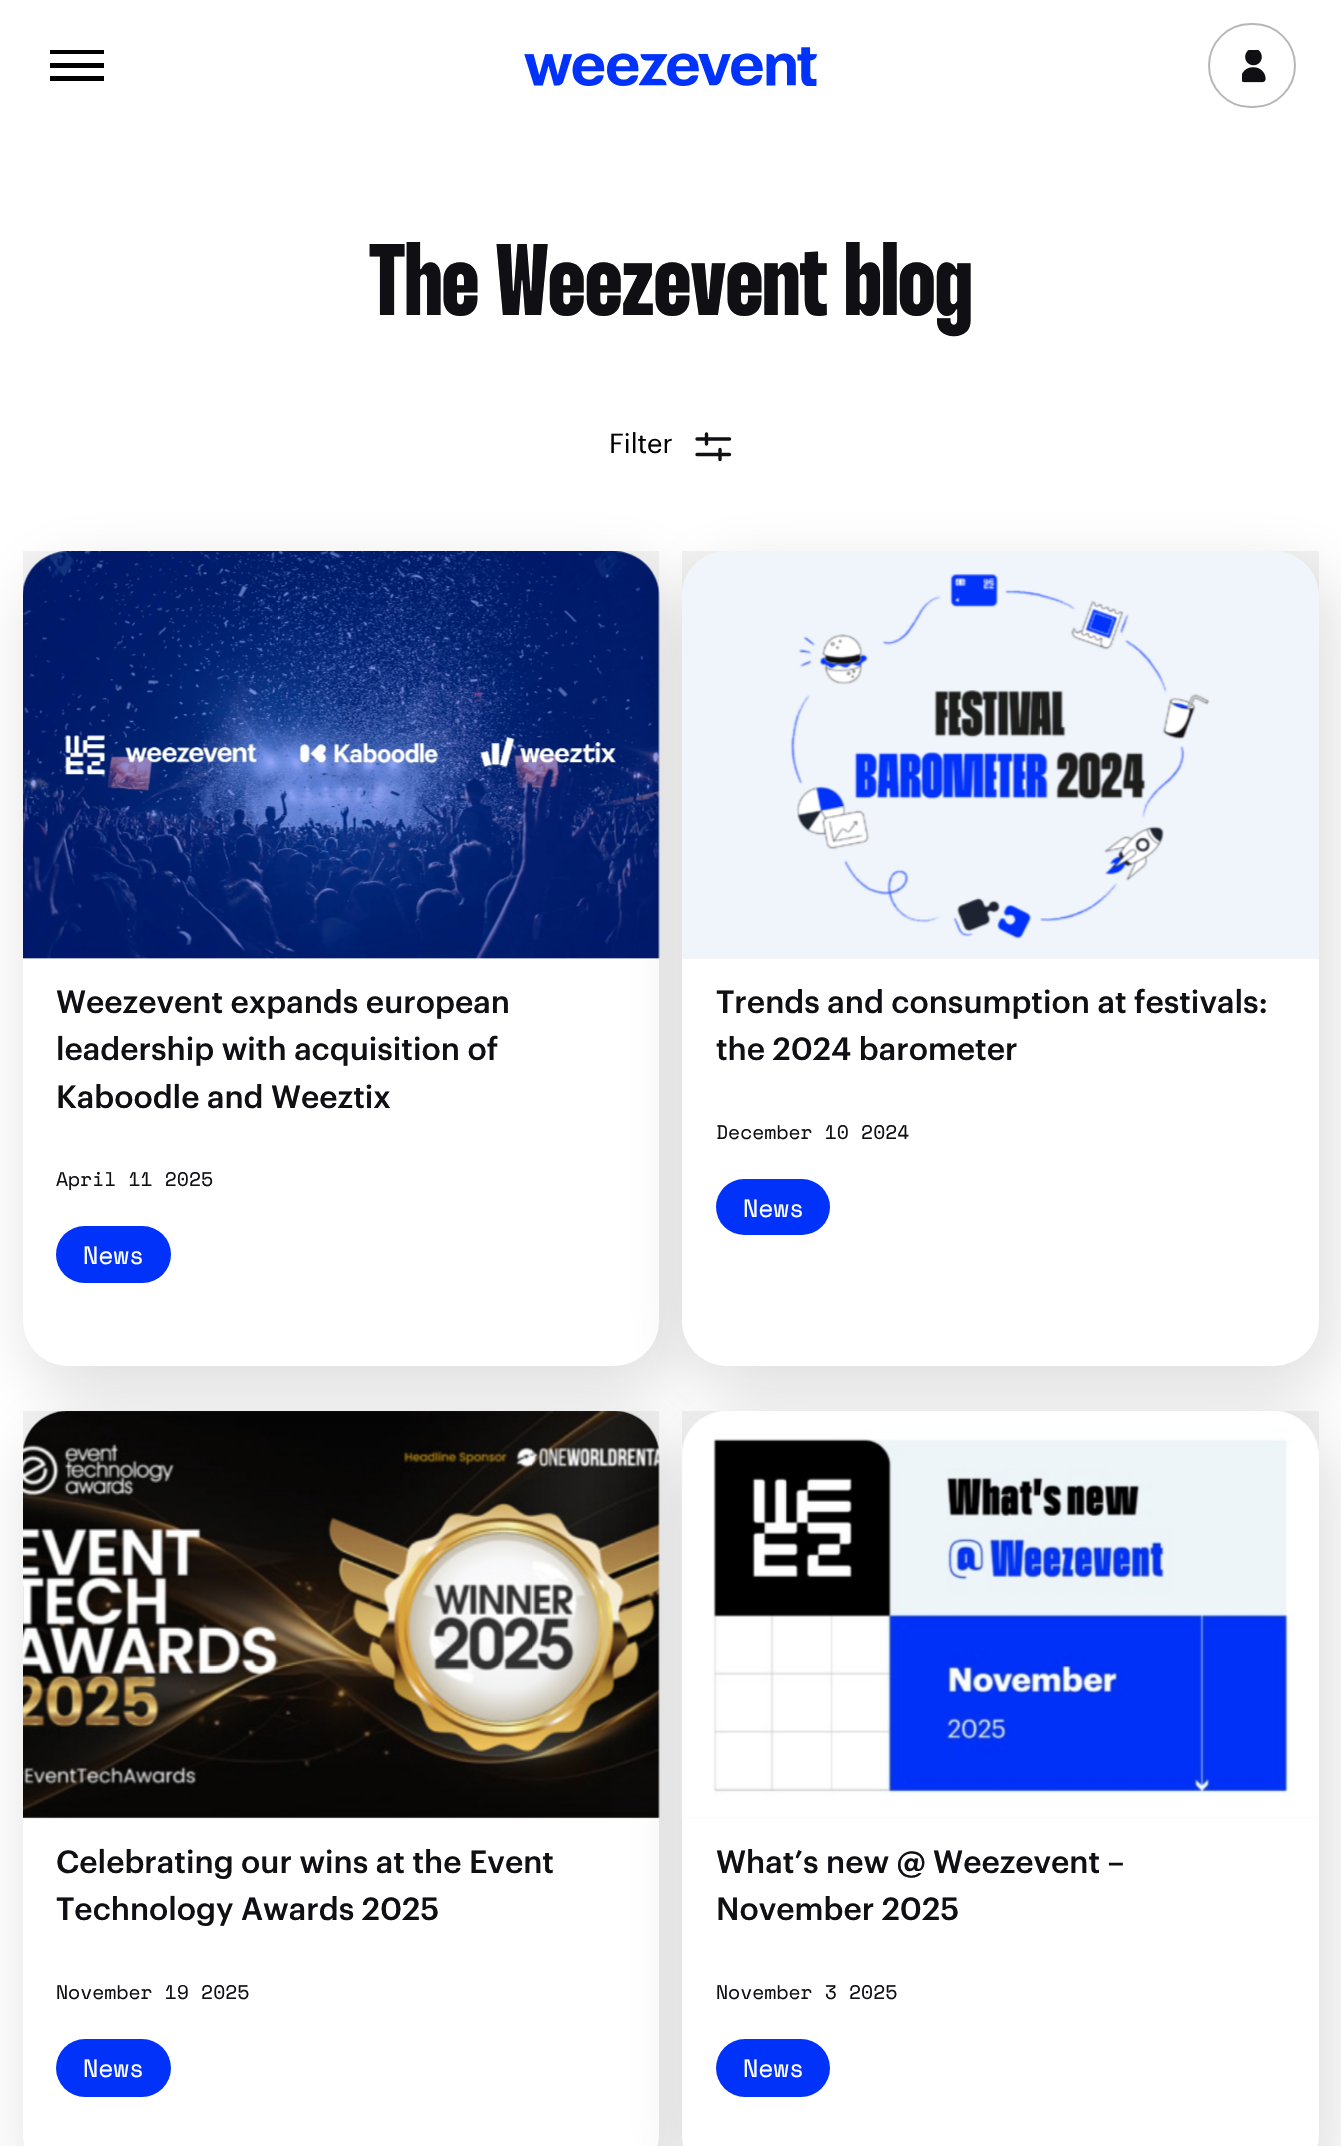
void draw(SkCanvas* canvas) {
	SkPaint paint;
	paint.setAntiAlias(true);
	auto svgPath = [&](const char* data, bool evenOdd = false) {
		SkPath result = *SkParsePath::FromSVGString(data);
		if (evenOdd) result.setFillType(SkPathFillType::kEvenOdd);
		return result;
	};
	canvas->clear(0xffffffff);
	paint.setColor(0xff000000);
	canvas->drawRect(SkRect::MakeXYWH(50, 50, 54, 4), paint);
	canvas->drawRect(SkRect::MakeXYWH(50, 63, 54, 5), paint);
	canvas->drawRect(SkRect::MakeXYWH(50, 76, 54, 5), paint);
	canvas->drawImageRect(SkImages::DeferredFromEncodedData(SkData::MakeFromFileName("img1.png")), SkRect::MakeXYWH(524, 47, 293, 39), SkSamplingOptions());
	paint.setStroke(true);
	paint.setStrokeWidth(2);
	paint.setColor(0xffb7b7b9);
	canvas->drawRoundRect(SkRect::MakeXYWH(1209, 24, 86, 83), 41.5, 41.5, paint);
	canvas->drawImageRect(SkImages::DeferredFromEncodedData(SkData::MakeFromFileName("img2.png")), SkRect::MakeXYWH(1242, 50, 24, 33), SkSamplingOptions());
	SkFont f1(fontMgr->matchFamilyStyle("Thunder", SkFontStyle::Bold()), 101.25);
	f1.setSubpixel(true);
	paint.setStroke(false);
	paint.setColor(0xff0f0f14);
	canvas->drawString("The Weezevent blog", 369, 315, f1, paint);
	SkFont f2(fontMgr->matchFamilyStyle("Graphik", SkFontStyle::Normal()), 27);
	f2.setSubpixel(true);
	paint.setColor(0xff000000);
	canvas->drawString("Filter", 609, 453, f2, paint);
	paint.setStroke(true);
	paint.setStrokeWidth(3.4);
	paint.setStrokeCap(SkPaint::kRound_Cap);
	paint.setStrokeJoin(SkPaint::kRound_Join);
	paint.setColor(0xff0f0f14);
	canvas->drawPath(svgPath("M729.5 454.5H697M729.5 439H697M720 449.5V459.5M706.5 434V444"), paint);
	paint.setStroke(false);
	paint.setColor(0x260f0f14);
	paint.setMaskFilter(SkMaskFilter::MakeBlur(kNormal_SkBlurStyle, 34));
	canvas->drawRoundRect(SkRect::MakeXYWH(34, 574, 637, 814), 45, 45, paint);
	paint.setMaskFilter(nullptr);
	paint.setColor(0xffffffff);
	canvas->drawRoundRect(SkRect::MakeXYWH(23, 551, 636, 815), 45, 45, paint);
	paint.setColor(0x0d0f0f14);
	canvas->drawRect(SkRect::MakeXYWH(23, 551, 636, 408), paint);
	canvas->drawImageRect(SkImages::DeferredFromEncodedData(SkData::MakeFromFileName("img3.png")), SkRect::MakeXYWH(23, 551, 637, 408), SkSamplingOptions());
	SkFont f3(fontMgr->matchFamilyStyle("Graphik", SkFontStyle(500, SkFontStyle::kNormal_Width, SkFontStyle::kUpright_Slant)), 31.5);
	f3.setSubpixel(true);
	paint.setColor(0xff0f0f14);
	canvas->drawString("Weezevent expands european", 56, 1013, f3, paint);
	canvas->drawString("leadership with acquisition of", 56, 1060, f3, paint);
	canvas->drawString("Kaboodle and Weeztix", 56, 1108, f3, paint);
	SkFont f4(fontMgr->matchFamilyStyle("Space Mono", SkFontStyle::Normal()), 19.75);
	f4.setSubpixel(true);
	canvas->drawString("April 11 2025", 56, 1186, f4, paint);
	paint.setColor(0xff0032fa);
	canvas->drawRoundRect(SkRect::MakeXYWH(56, 1226, 115, 57), 28.5, 28.5, paint);
	SkFont f5(fontMgr->matchFamilyStyle("Space Mono", SkFontStyle::Normal()), 25);
	f5.setSubpixel(true);
	paint.setColor(0xffffffff);
	canvas->drawString("News", 83, 1264, f5, paint);
	paint.setColor(0x260f0f14);
	paint.setMaskFilter(SkMaskFilter::MakeBlur(kNormal_SkBlurStyle, 34));
	canvas->drawRoundRect(SkRect::MakeXYWH(693, 574, 637, 814), 45, 45, paint);
	paint.setMaskFilter(nullptr);
	paint.setColor(0xffffffff);
	canvas->drawRoundRect(SkRect::MakeXYWH(682, 551, 637, 815), 45, 45, paint);
	paint.setColor(0x0d0f0f14);
	canvas->drawRect(SkRect::MakeXYWH(682, 551, 637, 408), paint);
	canvas->drawImageRect(SkImages::DeferredFromEncodedData(SkData::MakeFromFileName("img4.png")), SkRect::MakeXYWH(682, 551, 637, 407), SkSamplingOptions());
	paint.setColor(0xff0f0f14);
	canvas->drawString("Trends and consumption at festivals:", 716, 1013, f3, paint);
	canvas->drawString("the 2024 barometer", 716, 1060, f3, paint);
	canvas->drawString("December 10 2024", 716, 1139, f4, paint);
	paint.setColor(0xff0032fa);
	canvas->drawRoundRect(SkRect::MakeXYWH(716, 1179, 114, 56), 28, 28, paint);
	paint.setColor(0xffffffff);
	canvas->drawString("News", 743, 1217, f5, paint);
	paint.setColor(0x260f0f14);
	paint.setMaskFilter(SkMaskFilter::MakeBlur(kNormal_SkBlurStyle, 34));
	canvas->drawRoundRect(SkRect::MakeXYWH(34, 1433, 637, 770), 45, 45, paint);
	paint.setMaskFilter(nullptr);
	paint.setColor(0xffffffff);
	canvas->drawRoundRect(SkRect::MakeXYWH(23, 1411, 636, 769), 45, 45, paint);
	paint.setColor(0x0d0f0f14);
	canvas->drawRect(SkRect::MakeXYWH(23, 1411, 636, 407), paint);
	canvas->drawImageRect(SkImages::DeferredFromEncodedData(SkData::MakeFromFileName("img5.png")), SkRect::MakeXYWH(23, 1411, 637, 408), SkSamplingOptions());
	paint.setColor(0xff0f0f14);
	canvas->drawString("Celebrating our wins at the Event", 56, 1873, f3, paint);
	canvas->drawString("Technology Awards 2025", 56, 1920, f3, paint);
	canvas->drawString("November 19 2025", 56, 1999, f4, paint);
	paint.setColor(0xff0032fa);
	canvas->drawRoundRect(SkRect::MakeXYWH(56, 2039, 115, 58), 29, 29, paint);
	paint.setColor(0xffffffff);
	canvas->drawString("News", 83, 2077, f5, paint);
	paint.setColor(0x260f0f14);
	paint.setMaskFilter(SkMaskFilter::MakeBlur(kNormal_SkBlurStyle, 34));
	canvas->drawRoundRect(SkRect::MakeXYWH(693, 1433, 637, 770), 45, 45, paint);
	paint.setMaskFilter(nullptr);
	paint.setColor(0xffffffff);
	canvas->drawRoundRect(SkRect::MakeXYWH(682, 1411, 637, 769), 45, 45, paint);
	paint.setColor(0x0d0f0f14);
	canvas->drawRect(SkRect::MakeXYWH(682, 1411, 637, 407), paint);
	canvas->drawImageRect(SkImages::DeferredFromEncodedData(SkData::MakeFromFileName("img6.png")), SkRect::MakeXYWH(681, 1411, 638, 407), SkSamplingOptions());
	paint.setColor(0xff0f0f14);
	canvas->drawString("What’s new @ Weezevent –", 716, 1873, f3, paint);
	canvas->drawString("November 2025", 716, 1920, f3, paint);
	canvas->drawString("November 3 2025", 716, 1999, f4, paint);
	paint.setColor(0xff0032fa);
	canvas->drawRoundRect(SkRect::MakeXYWH(716, 2039, 114, 58), 29, 29, paint);
	paint.setColor(0xffffffff);
	canvas->drawString("News", 743, 2077, f5, paint);
}
